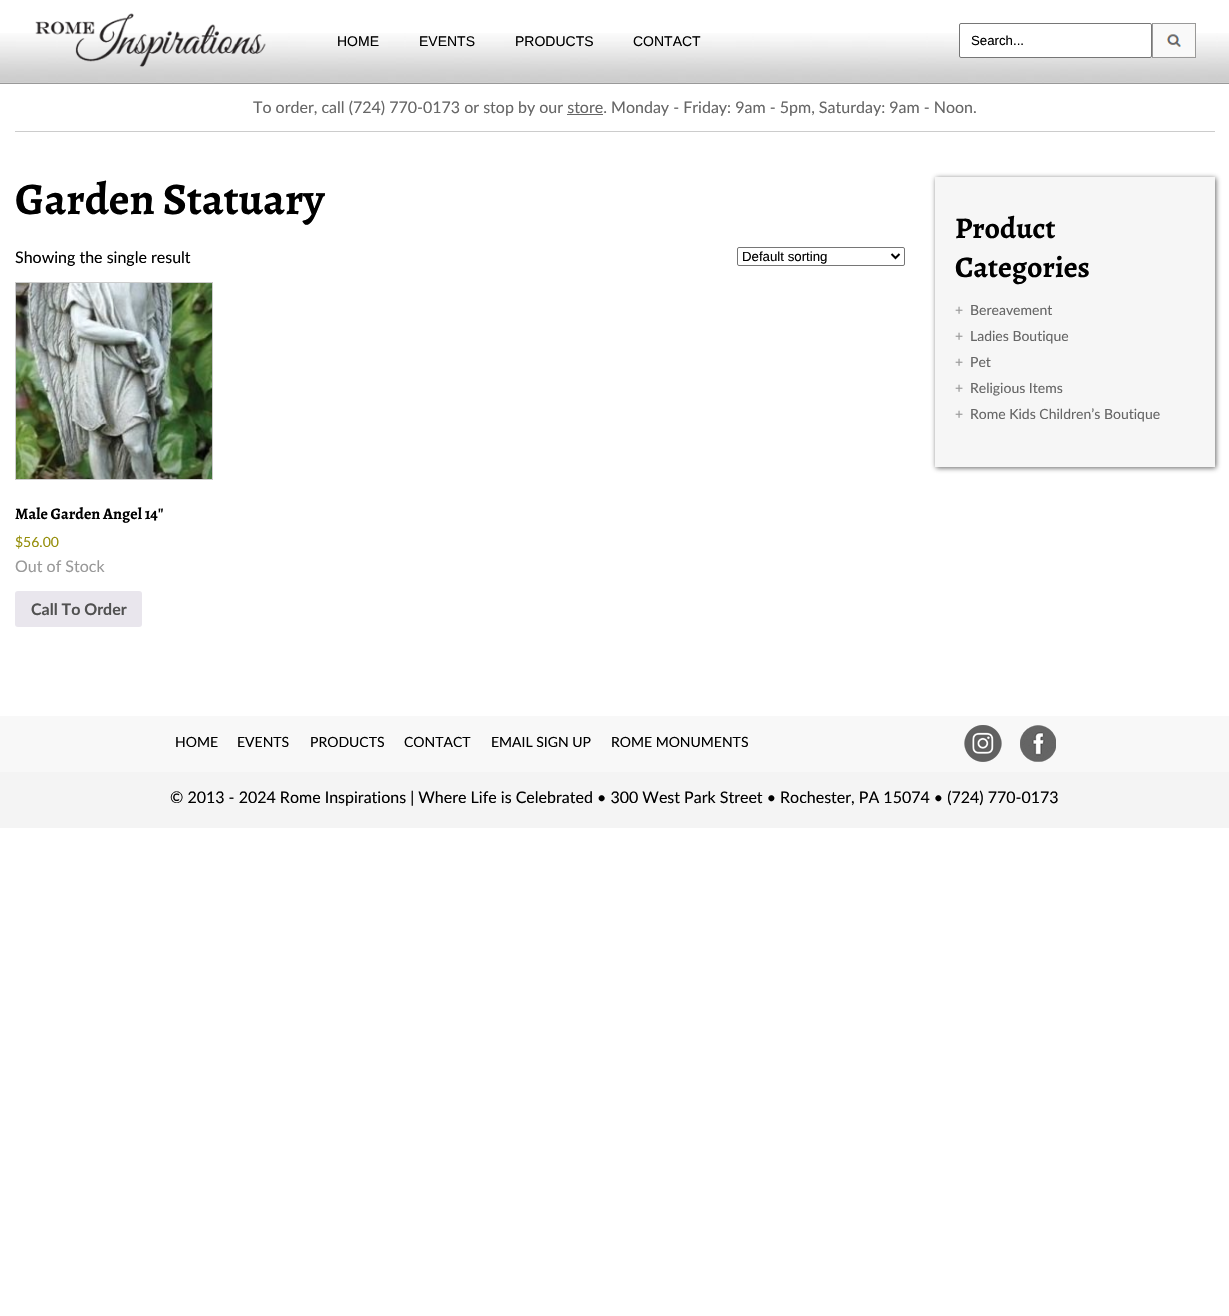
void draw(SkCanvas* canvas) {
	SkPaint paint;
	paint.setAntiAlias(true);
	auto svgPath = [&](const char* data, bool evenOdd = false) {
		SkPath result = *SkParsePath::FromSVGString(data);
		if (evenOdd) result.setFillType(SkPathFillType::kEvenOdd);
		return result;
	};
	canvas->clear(0xffffffff);
	canvas->drawImageRect(SkImages::DeferredFromEncodedData(SkData::MakeFromFileName("img1.png")), SkRect::MakeXYWH(0, 33, 1229, 51), SkSamplingOptions());
	canvas->drawImageRect(SkImages::DeferredFromEncodedData(SkData::MakeFromFileName("img2.png")), SkRect::MakeXYWH(35, 13, 231, 54), SkSamplingOptions());
	SkFont f1(fontMgr->matchFamilyStyle("Liberation Sans", SkFontStyle::Normal()), 14);
	f1.setSubpixel(true);
	paint.setColor(0xff000000);
	canvas->drawString("HOME", 337, 46, f1, paint);
	canvas->drawString("EVENTS", 419, 46, f1, paint);
	canvas->drawString("PRODUCTS", 515, 46, f1, paint);
	canvas->drawString("CONTACT", 633, 46, f1, paint);
	paint.setColor(0xffffffff);
	canvas->drawRoundRect(SkRect::MakeXYWH(959.5, 23.5, 192, 34), 1.5, 1.5, paint);
	paint.setStroke(true);
	paint.setStrokeWidth(1);
	paint.setColor(0xff767676);
	canvas->drawRoundRect(SkRect::MakeXYWH(959.5, 23.5, 192, 34), 1.5, 1.5, paint);
	SkFont f2(fontMgr->matchFamilyStyle("Liberation Sans", SkFontStyle::Normal()), 13.25);
	f2.setSubpixel(true);
	paint.setStroke(false);
	paint.setColor(0xff000000);
	canvas->drawString("Search...", 971, 45, f2, paint);
	canvas->drawImageRect(SkImages::DeferredFromEncodedData(SkData::MakeFromFileName("img3.png")), SkRect::MakeXYWH(1153, 24, 42, 33), SkSamplingOptions());
	paint.setStroke(true);
	paint.setColor(0xff999999);
	canvas->drawRect(SkRect::MakeXYWH(1152.5, 23.5, 43, 34), paint);
	paint.setStroke(false);
	paint.setColor(0xffcccccc);
	canvas->drawRect(SkRect::MakeXYWH(15, 131, 1200, 1), paint);
	SkFont f3(fontMgr->matchFamilyStyle("Lato", SkFontStyle::Normal()), 16);
	f3.setSubpixel(true);
	paint.setColor(0xff666666);
	canvas->drawString("To order, call (724) 770-0173 or stop by our store. Monday - Friday: 9am - 5pm, Saturday: 9am - Noon.", 253, 113, f3, paint);
	canvas->drawRect(SkRect::MakeXYWH(567, 114, 36, 1), paint);
	SkFont f4(fontMgr->matchFamilyStyle("Alegreya", SkFontStyle::Bold()), 45);
	f4.setSubpixel(true);
	paint.setColor(0xff000000);
	canvas->drawString("Garden Statuary", 15, 214, f4, paint);
	canvas->drawString("Showing the single result", 15, 263, f3, paint);
	paint.setStroke(true);
	paint.setColor(0xff767676);
	canvas->drawRoundRect(SkRect::MakeXYWH(737.5, 247.5, 167, 18), 1.5, 1.5, paint);
	paint.setStrokeWidth(2);
	paint.setColor(0xff000000);
	canvas->drawPath(svgPath("M891.5 254L895.5 258L899.5 254"), paint);
	paint.setStroke(false);
	canvas->drawString("Default sorting", 742, 261, f2, paint);
	paint.setStroke(true);
	paint.setStrokeWidth(1);
	paint.setColor(0xffcccccc);
	canvas->drawRect(SkRect::MakeXYWH(15.5, 282.5, 197, 197), paint);
	canvas->drawImageRect(SkImages::DeferredFromEncodedData(SkData::MakeFromFileName("img4.png")), SkRect::MakeXYWH(16, 283, 196, 196), SkSamplingOptions());
	SkFont f5(fontMgr->matchFamilyStyle("Alegreya", SkFontStyle::Bold()), 16);
	f5.setSubpixel(true);
	paint.setStroke(false);
	paint.setColor(0xff000000);
	canvas->drawString("Male Garden Angel 14″", 15, 519, f5, paint);
	SkFont f6(fontMgr->matchFamilyStyle("Lato", SkFontStyle::Normal()), 14);
	f6.setSubpixel(true);
	paint.setColor(0xff958e09);
	canvas->drawString("$56.00", 15, 547, f6, paint);
	paint.setColor(0xff999999);
	canvas->drawString("Out of Stock", 15, 572, f3, paint);
	paint.setColor(0xffe9e6ed);
	canvas->drawRoundRect(SkRect::MakeXYWH(15, 591, 127, 36), 3, 3, paint);
	SkFont f7(fontMgr->matchFamilyStyle("Lato", SkFontStyle::Bold()), 16);
	f7.setSubpixel(true);
	paint.setColor(0xff515151);
	canvas->drawString("Call To Order", 31, 615, f7, paint);
	paint.setColor(0xbf323232);
	paint.setMaskFilter(SkMaskFilter::MakeBlur(kNormal_SkBlurStyle, 2.5));
	canvas->drawRect(SkRect::MakeXYWH(936, 178, 280, 290), paint);
	paint.setMaskFilter(nullptr);
	paint.setColor(0xfff6f6f6);
	canvas->drawRect(SkRect::MakeXYWH(935, 177, 280, 290), paint);
	SkFont f8(fontMgr->matchFamilyStyle("Alegreya", SkFontStyle::Bold()), 30);
	f8.setSubpixel(true);
	paint.setColor(0xff000000);
	canvas->drawString("Product", 955, 238, f8, paint);
	canvas->drawString("Categories", 955, 277, f8, paint);
	paint.setColor(0xff999999);
	canvas->drawString("+", 955, 315, f6, paint);
	paint.setColor(0xff666666);
	canvas->drawString("Bereavement", 970, 315, f6, paint);
	paint.setColor(0xff999999);
	canvas->drawString("+", 955, 341, f6, paint);
	paint.setColor(0xff666666);
	canvas->drawString("Ladies Boutique", 970, 341, f6, paint);
	paint.setColor(0xff999999);
	canvas->drawString("+", 955, 367, f6, paint);
	paint.setColor(0xff666666);
	canvas->drawString("Pet", 970, 367, f6, paint);
	paint.setColor(0xff999999);
	canvas->drawString("+", 955, 393, f6, paint);
	paint.setColor(0xff666666);
	canvas->drawString("Religious Items", 970, 393, f6, paint);
	paint.setColor(0xff999999);
	canvas->drawString("+", 955, 419, f6, paint);
	paint.setColor(0xff666666);
	canvas->drawString("Rome Kids Children’s Boutique", 970, 419, f6, paint);
	paint.setColor(0xfff8f8f8);
	canvas->drawRect(SkRect::MakeXYWH(0, 716, 1229, 56), paint);
	paint.setColor(0xff000000);
	canvas->drawString("HOME", 175, 747, f6, paint);
	canvas->drawString("EVENTS", 237, 747, f6, paint);
	canvas->drawString("PRODUCTS", 310, 747, f6, paint);
	canvas->drawString("CONTACT", 404, 747, f6, paint);
	canvas->drawString("EMAIL SIGN UP", 491, 747, f6, paint);
	canvas->drawString("ROME MONUMENTS", 611, 747, f6, paint);
	canvas->drawImageRect(SkImages::DeferredFromEncodedData(SkData::MakeFromFileName("img5.png")), SkRect::MakeXYWH(964, 725, 38, 37), SkSamplingOptions());
	canvas->drawImageRect(SkImages::DeferredFromEncodedData(SkData::MakeFromFileName("img6.png")), SkRect::MakeXYWH(1020, 725, 36, 37), SkSamplingOptions());
	paint.setColor(0xfff4f4f4);
	canvas->drawRect(SkRect::MakeXYWH(0, 772, 1229, 56), paint);
	paint.setColor(0xff000000);
	canvas->drawString("© 2013 - 2024 Rome Inspirations | Where Life is Celebrated • 300 West Park Street • Rochester, PA 15074 • (724) 770-0173", 170, 803, f3, paint);
}
